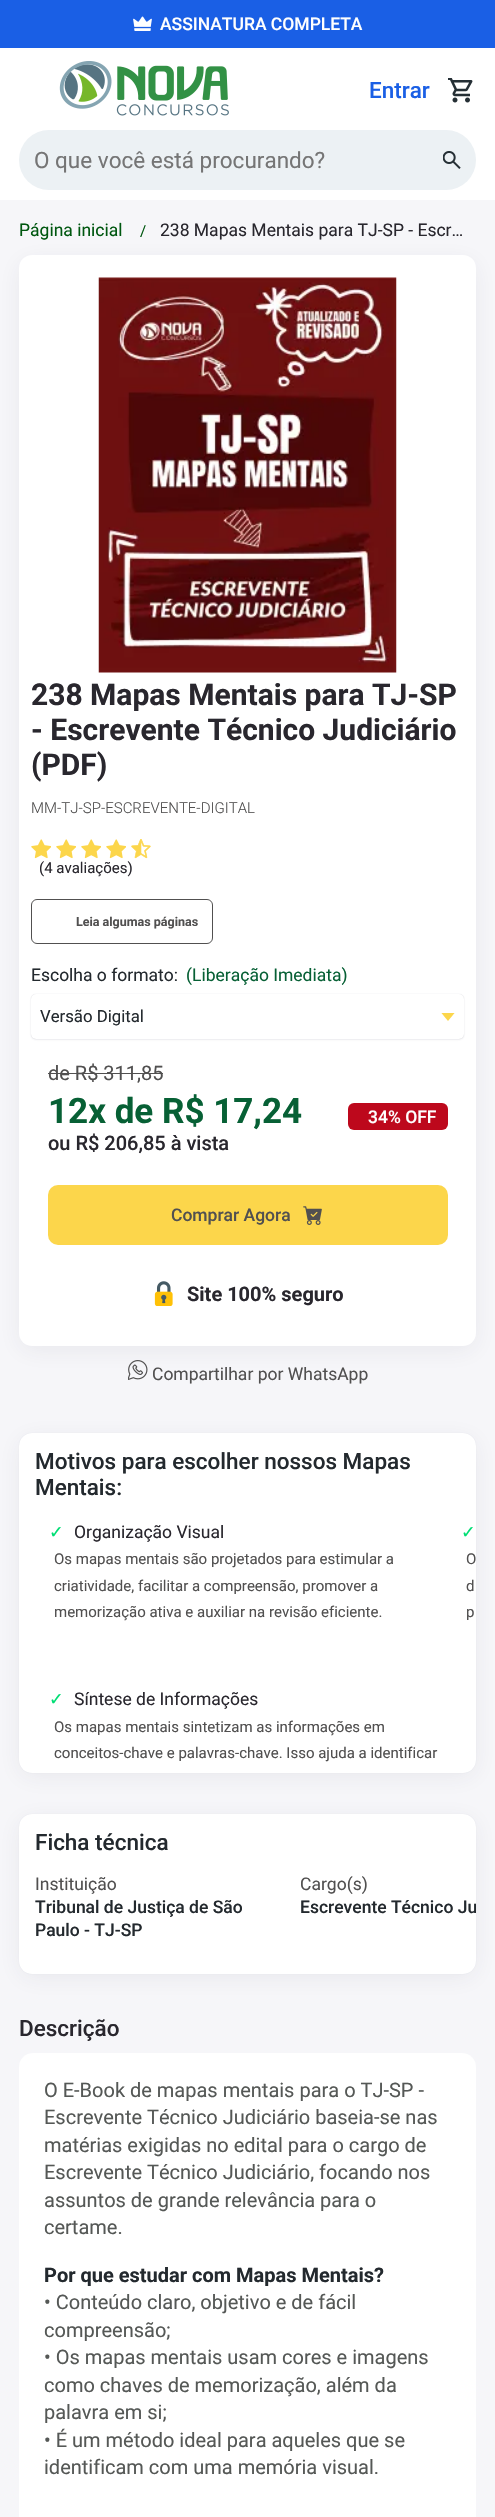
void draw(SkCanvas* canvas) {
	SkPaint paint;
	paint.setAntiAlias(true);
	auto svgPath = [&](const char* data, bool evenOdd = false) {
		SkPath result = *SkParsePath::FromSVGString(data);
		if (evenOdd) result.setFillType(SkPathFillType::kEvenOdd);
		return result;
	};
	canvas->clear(0xfff6f6f9);
	paint.setColor(0xffffffff);
	canvas->drawRect(SkRect::MakeXYWH(0, 48, 495, 152), paint);
	paint.setColor(0xff1a5fe5);
	canvas->drawRect(SkRect::MakeXYWH(0, 0, 495, 48), paint);
	canvas->drawImageRect(SkImages::DeferredFromEncodedData(SkData::MakeFromFileName("img1.png")), SkRect::MakeXYWH(133, 16, 19, 15), SkSamplingOptions());
	SkFont f1(fontMgr->matchFamilyStyle("Roboto", SkFontStyle(500, SkFontStyle::kNormal_Width, SkFontStyle::kUpright_Slant)), 17.5);
	f1.setSubpixel(true);
	paint.setColor(0xffffffff);
	canvas->drawString("ASSINATURA COMPLETA", 160, 30, f1, paint);
	canvas->drawImageRect(SkImages::DeferredFromEncodedData(SkData::MakeFromFileName("img2.png")), SkRect::MakeXYWH(59, 61, 170, 55), SkSamplingOptions());
	SkFont f2(fontMgr->matchFamilyStyle("Roboto", SkFontStyle(500, SkFontStyle::kNormal_Width, SkFontStyle::kUpright_Slant)), 22.5);
	f2.setSubpixel(true);
	paint.setColor(0xff1a5fe5);
	canvas->drawString("Entrar", 369, 98, f2, paint);
	canvas->drawImageRect(SkImages::DeferredFromEncodedData(SkData::MakeFromFileName("img3.png")), SkRect::MakeXYWH(448, 78, 25, 25), SkSamplingOptions());
	paint.setColor(0xffecf1f4);
	canvas->drawRoundRect(SkRect::MakeXYWH(19, 130, 457, 60), 30, 30, paint);
	SkFont f3(fontMgr->matchFamilyStyle("Roboto", SkFontStyle::Normal()), 22.5);
	f3.setSubpixel(true);
	paint.setColor(0xff757575);
	canvas->drawString("O que você está procurando?", 34, 168, f3, paint);
	canvas->drawImageRect(SkImages::DeferredFromEncodedData(SkData::MakeFromFileName("img4.png")), SkRect::MakeXYWH(443, 151, 18, 18), SkSamplingOptions());
	paint.setColor(0x14323247);
	paint.setMaskFilter(SkMaskFilter::MakeBlur(kNormal_SkBlurStyle, 12.5));
	canvas->drawRoundRect(SkRect::MakeXYWH(21, 263, 453, 1086), 10, 10, paint);
	paint.setMaskFilter(nullptr);
	SkFont f4(fontMgr->matchFamilyStyle("Roboto", SkFontStyle::Normal()), 17.5);
	f4.setSubpixel(true);
	paint.setColor(0xff005710);
	canvas->drawString("Página inicial", 19, 236, f4, paint);
	SkFont f5(fontMgr->matchFamilyStyle("Roboto", SkFontStyle::Normal()), 15);
	f5.setSubpixel(true);
	canvas->drawString("/", 140, 236, f5, paint);
	paint.setColor(0xff29272e);
	canvas->drawString("238 Mapas Mentais para TJ-SP - Escr…", 160, 236, f4, paint);
	paint.setColor(0xffffffff);
	canvas->drawRoundRect(SkRect::MakeXYWH(19, 255, 457, 1091), 13, 13, paint);
	canvas->drawImageRect(SkImages::DeferredFromEncodedData(SkData::MakeFromFileName("img5.png")), SkRect::MakeXYWH(98, 277, 299, 396), SkSamplingOptions());
	SkFont f6(fontMgr->matchFamilyStyle("Roboto", SkFontStyle::Bold()), 30);
	f6.setSubpixel(true);
	paint.setColor(0xff29272e);
	canvas->drawString("238 Mapas Mentais para TJ-SP", 31, 705, f6, paint);
	canvas->drawString("- Escrevente Técnico Judiciário", 31, 740, f6, paint);
	canvas->drawString("(PDF)", 31, 775, f6, paint);
	SkFont f7(fontMgr->matchFamilyStyle("Roboto", SkFontStyle(300, SkFontStyle::kNormal_Width, SkFontStyle::kUpright_Slant)), 15);
	f7.setSubpixel(true);
	paint.setColor(0xff515050);
	canvas->drawString("MM-TJ-SP-ESCREVENTE-DIGITAL", 31, 813, f7, paint);
	canvas->drawImageRect(SkImages::DeferredFromEncodedData(SkData::MakeFromFileName("img6.png")), SkRect::MakeXYWH(31, 839, 20, 20), SkSamplingOptions());
	canvas->drawImageRect(SkImages::DeferredFromEncodedData(SkData::MakeFromFileName("img6.png")), SkRect::MakeXYWH(56, 839, 20, 20), SkSamplingOptions());
	canvas->drawImageRect(SkImages::DeferredFromEncodedData(SkData::MakeFromFileName("img6.png")), SkRect::MakeXYWH(81, 839, 20, 20), SkSamplingOptions());
	canvas->drawImageRect(SkImages::DeferredFromEncodedData(SkData::MakeFromFileName("img6.png")), SkRect::MakeXYWH(106, 839, 20, 20), SkSamplingOptions());
	canvas->drawImageRect(SkImages::DeferredFromEncodedData(SkData::MakeFromFileName("img7.png")), SkRect::MakeXYWH(131, 839, 20, 20), SkSamplingOptions());
	paint.setColor(0xff29272e);
	canvas->drawString("(4 avaliações)", 39, 873, f5, paint);
	paint.setStroke(true);
	paint.setStrokeWidth(1);
	paint.setColor(0xff515050);
	canvas->drawRoundRect(SkRect::MakeXYWH(31.5, 899.5, 181, 44), 5.5, 5.5, paint);
	SkFont f8(fontMgr->matchFamilyStyle("Roboto", SkFontStyle::Bold()), 12.5);
	f8.setSubpixel(true);
	paint.setStroke(false);
	canvas->drawString("Leia algumas páginas", 76, 926, f8, paint);
	paint.setColor(0xff23292e);
	canvas->drawString("Escolha o formato:", 31, 981, f4, paint);
	paint.setColor(0xff076035);
	canvas->drawString("(Liberação Imediata)", 186, 981, f4, paint);
	paint.setColor(0x14323247);
	paint.setMaskFilter(SkMaskFilter::MakeBlur(kNormal_SkBlurStyle, 1));
	canvas->drawRoundRect(SkRect::MakeXYWH(31, 995, 433, 45), 5, 5, paint);
	paint.setMaskFilter(nullptr);
	paint.setColor(0x33323247);
	paint.setMaskFilter(SkMaskFilter::MakeBlur(kNormal_SkBlurStyle, 0.5));
	canvas->drawRoundRect(SkRect::MakeXYWH(31, 994, 433, 45), 5, 5, paint);
	paint.setMaskFilter(nullptr);
	paint.setColor(0xffffffff);
	canvas->drawRoundRect(SkRect::MakeXYWH(31, 994, 433, 45), 5, 5, paint);
	canvas->save();
	canvas->clipRect(SkRect::MakeXYWH(441, 1013, 14, 8));
	paint.setColor(0xfffcd64b);
	canvas->drawPath(svgPath("M448 1021L441 1012.5H455Z"), paint);
	canvas->restore();
	SkFont f9(fontMgr->matchFamilyStyle("Roboto", SkFontStyle::Normal()), 16.75);
	f9.setSubpixel(true);
	paint.setColor(0xff23292e);
	canvas->drawString("Versão Digital", 40, 1022, f9, paint);
	SkFont f10(fontMgr->matchFamilyStyle("Roboto", SkFontStyle::Normal()), 20);
	f10.setSubpixel(true);
	paint.setColor(0xff515050);
	canvas->drawString("de R$ 311,85", 48, 1080, f10, paint);
	canvas->drawRect(SkRect::MakeXYWH(48, 1073, 115, 1), paint);
	SkFont f11(fontMgr->matchFamilyStyle("Roboto", SkFontStyle::Bold()), 35);
	f11.setSubpixel(true);
	paint.setColor(0xff076035);
	canvas->drawString("12x de R$ 17,24", 48, 1123, f11, paint);
	SkFont f12(fontMgr->matchFamilyStyle("Roboto", SkFontStyle(500, SkFontStyle::kNormal_Width, SkFontStyle::kUpright_Slant)), 20);
	f12.setSubpixel(true);
	paint.setColor(0xff29272e);
	canvas->drawString("ou R$ 206,85 à vista", 48, 1150, f12, paint);
	paint.setColor(0xffbd081c);
	canvas->drawRoundRect(SkRect::MakeXYWH(348, 1103, 100, 27), 6, 6, paint);
	paint.setColor(0xffffffff);
	canvas->drawString("34% OFF", 368, 1123, f1, paint);
	paint.setColor(0xfffcd64b);
	canvas->drawRoundRect(SkRect::MakeXYWH(48, 1185, 400, 60), 10, 10, paint);
	paint.setColor(0xff515050);
	canvas->drawString("Comprar Agora", 171, 1221, f1, paint);
	canvas->drawImageRect(SkImages::DeferredFromEncodedData(SkData::MakeFromFileName("img8.png")), SkRect::MakeXYWH(303, 1206, 19, 19), SkSamplingOptions());
	canvas->drawImageRect(SkImages::DeferredFromEncodedData(SkData::MakeFromFileName("img9.png")), SkRect::MakeXYWH(154, 1281, 19, 25), SkSamplingOptions());
	SkFont f13(fontMgr->matchFamilyStyle("Roboto", SkFontStyle::Bold()), 20);
	f13.setSubpixel(true);
	paint.setColor(0xff29272e);
	canvas->drawString("Site 100% seguro", 187, 1301, f13, paint);
	canvas->drawImageRect(SkImages::DeferredFromEncodedData(SkData::MakeFromFileName("img10.png")), SkRect::MakeXYWH(128, 1360, 20, 20), SkSamplingOptions());
	paint.setColor(0xff515050);
	canvas->drawString("Compartilhar por WhatsApp", 152, 1380, f4, paint);
	paint.setColor(0x1a0c1a4b);
	paint.setMaskFilter(SkMaskFilter::MakeBlur(kNormal_SkBlurStyle, 0.5));
	canvas->drawRoundRect(SkRect::MakeXYWH(19, 1433, 457, 340), 13, 13, paint);
	paint.setMaskFilter(nullptr);
	paint.setColor(0x14323247);
	paint.setMaskFilter(SkMaskFilter::MakeBlur(kNormal_SkBlurStyle, 12.5));
	canvas->drawRoundRect(SkRect::MakeXYWH(21, 1440, 453, 335), 10, 10, paint);
	paint.setMaskFilter(nullptr);
	paint.setColor(0xffffffff);
	canvas->drawRoundRect(SkRect::MakeXYWH(19, 1433, 457, 340), 13, 13, paint);
	paint.setColor(0xff23292e);
	canvas->drawString("Motivos para escolher nossos Mapas", 35, 1469, f2, paint);
	canvas->drawString("Mentais:", 35, 1495, f2, paint);
	SkFont f14(fontMgr->matchFamilyStyle("DejaVu Sans", SkFontStyle::Normal()), 17.5);
	f14.setSubpixel(true);
	paint.setColor(0xff00de74);
	canvas->drawString("✓", 49, 1538, f14, paint);
	paint.setColor(0xff29272e);
	canvas->drawString("Organização Visual", 74, 1538, f4, paint);
	paint.setColor(0xff515050);
	canvas->drawString("Os mapas mentais são projetados para estimular a", 54, 1564, f5, paint);
	canvas->drawString("criatividade, facilitar a compreensão, promover a", 54, 1591, f5, paint);
	canvas->drawString("memorização ativa e auxiliar na revisão eficiente.", 54, 1617, f5, paint);
	paint.setColor(0xff00de74);
	canvas->drawString("✓", 461, 1538, f14, paint);
	paint.setColor(0xff515050);
	canvas->drawString("O", 466, 1564, f5, paint);
	canvas->drawString("d", 466, 1591, f5, paint);
	canvas->drawString("p", 466, 1617, f5, paint);
	paint.setColor(0xff00de74);
	canvas->drawString("✓", 49, 1705, f14, paint);
	paint.setColor(0xff29272e);
	canvas->drawString("Síntese de Informações", 74, 1705, f4, paint);
	paint.setColor(0xff515050);
	canvas->drawString("Os mapas mentais sintetizam as informações em", 54, 1732, f5, paint);
	canvas->drawString("conceitos-chave e palavras-chave. Isso ajuda a identificar", 54, 1758, f5, paint);
	paint.setColor(0x1a0c1a4b);
	paint.setMaskFilter(SkMaskFilter::MakeBlur(kNormal_SkBlurStyle, 0.5));
	canvas->drawRoundRect(SkRect::MakeXYWH(19, 1814, 457, 160), 13, 13, paint);
	paint.setMaskFilter(nullptr);
	paint.setColor(0x14323247);
	paint.setMaskFilter(SkMaskFilter::MakeBlur(kNormal_SkBlurStyle, 12.5));
	canvas->drawRoundRect(SkRect::MakeXYWH(21, 1821, 453, 155), 10, 10, paint);
	paint.setMaskFilter(nullptr);
	paint.setColor(0xffffffff);
	canvas->drawRoundRect(SkRect::MakeXYWH(19, 1814, 457, 160), 13, 13, paint);
	paint.setColor(0xff23292e);
	canvas->drawString("Ficha técnica", 35, 1850, f2, paint);
	paint.setColor(0xff515050);
	canvas->drawString("Instituição", 35, 1890, f4, paint);
	paint.setColor(0xff23292e);
	canvas->drawString("Tribunal de Justiça de São", 35, 1913, f1, paint);
	canvas->drawString("Paulo - TJ-SP", 35, 1936, f1, paint);
	paint.setColor(0xff515050);
	canvas->drawString("Cargo(s)", 300, 1890, f4, paint);
	canvas->save();
	canvas->clipPath(svgPath("M32 1814H463C470 1814 476 1820 476 1827V1961C476 1968 470 1974 463 1974H32C25 1974 19 1968 19 1961V1827C19 1820 25 1814 32 1814Z"), true);
	paint.setColor(0xff23292e);
	canvas->drawString("Escrevente Técnico Ju", 300, 1913, f1, paint);
	canvas->restore();
	paint.setColor(0xff29272e);
	canvas->drawString("Descrição", 19, 2036, f2, paint);
	paint.setColor(0xffffffff);
	canvas->drawRoundRect(SkRect::MakeXYWH(19, 2053, 457, 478), 14, 14, paint);
	paint.setColor(0xff555856);
	canvas->drawString("O E-Book de mapas mentais para o TJ-SP -", 44, 2097, f10, paint);
	canvas->drawString("Escrevente Técnico Judiciário baseia-se nas", 44, 2124, f10, paint);
	canvas->drawString("matérias exigidas no edital para o cargo de", 44, 2152, f10, paint);
	canvas->drawString("Escrevente Técnico Judiciário, focando nos", 44, 2179, f10, paint);
	canvas->drawString("assuntos de grande relevância para o", 44, 2207, f10, paint);
	canvas->drawString("certame.", 44, 2234, f10, paint);
	paint.setColor(0xff23292e);
	canvas->drawString("Por que estudar com Mapas Mentais?", 44, 2282, f13, paint);
	paint.setColor(0xff555856);
	canvas->drawString("• Conteúdo claro, objetivo e de fácil", 44, 2309, f10, paint);
	canvas->drawString("compreensão;", 44, 2337, f10, paint);
	canvas->drawString("• Os mapas mentais usam cores e imagens", 44, 2364, f10, paint);
	canvas->drawString("como chaves de memorização, além da", 44, 2392, f10, paint);
	canvas->drawString("palavra em si;", 44, 2419, f10, paint);
	canvas->drawString("• É um método ideal para aqueles que se", 44, 2447, f10, paint);
	canvas->drawString("identificam com uma memória visual.", 44, 2474, f10, paint);
}
